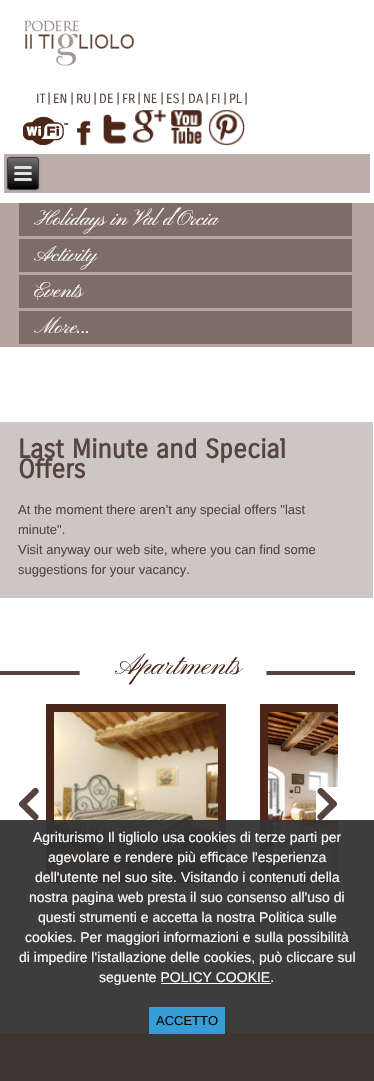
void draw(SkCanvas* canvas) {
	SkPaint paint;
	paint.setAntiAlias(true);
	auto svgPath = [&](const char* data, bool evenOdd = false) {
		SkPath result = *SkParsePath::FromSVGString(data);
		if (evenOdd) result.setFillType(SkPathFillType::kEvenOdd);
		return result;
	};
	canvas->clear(0xffffffff);
	canvas->drawImageRect(SkImages::DeferredFromEncodedData(SkData::MakeFromFileName("img1.png")), SkRect::MakeXYWH(24, 20, 110, 46), SkSamplingOptions());
	SkFont f1(fontMgr->matchFamilyStyle("Carrois Gothic", SkFontStyle::Normal()), 13);
	f1.setSubpixel(true);
	paint.setColor(0xff56453f);
	canvas->drawString("IT", 36, 103, f1, paint);
	canvas->drawString("|", 47, 103, f1, paint);
	canvas->drawString("EN", 53, 103, f1, paint);
	canvas->drawString("|", 70, 103, f1, paint);
	canvas->drawString("RU", 76, 103, f1, paint);
	canvas->drawString("|", 93, 103, f1, paint);
	canvas->drawString("DE", 99, 103, f1, paint);
	canvas->drawString("|", 116, 103, f1, paint);
	canvas->drawString("FR", 122, 103, f1, paint);
	canvas->drawString("|", 137, 103, f1, paint);
	canvas->drawString("NE", 143, 103, f1, paint);
	canvas->drawString("|", 160, 103, f1, paint);
	canvas->drawString("ES", 166, 103, f1, paint);
	canvas->drawString("|", 181, 103, f1, paint);
	canvas->drawString("DA", 188, 103, f1, paint);
	canvas->drawString("|", 205, 103, f1, paint);
	canvas->drawString("FI", 211, 103, f1, paint);
	canvas->drawString("|", 223, 103, f1, paint);
	canvas->drawString("PL", 229, 103, f1, paint);
	canvas->drawString("|", 244, 103, f1, paint);
	canvas->drawImageRect(SkImages::DeferredFromEncodedData(SkData::MakeFromFileName("img2.png")), SkRect::MakeXYWH(23, 116, 45, 29), SkSamplingOptions());
	canvas->drawImageRect(SkImages::DeferredFromEncodedData(SkData::MakeFromFileName("img3.png")), SkRect::MakeXYWH(77, 121, 14, 25), SkSamplingOptions());
	canvas->drawImageRect(SkImages::DeferredFromEncodedData(SkData::MakeFromFileName("img4.png")), SkRect::MakeXYWH(103, 114, 24, 30), SkSamplingOptions());
	canvas->drawImageRect(SkImages::DeferredFromEncodedData(SkData::MakeFromFileName("img5.png")), SkRect::MakeXYWH(133, 110, 33, 33), SkSamplingOptions());
	canvas->drawImageRect(SkImages::DeferredFromEncodedData(SkData::MakeFromFileName("img6.png")), SkRect::MakeXYWH(171, 110, 31, 34), SkSamplingOptions());
	canvas->drawImageRect(SkImages::DeferredFromEncodedData(SkData::MakeFromFileName("img7.png")), SkRect::MakeXYWH(209, 110, 36, 36), SkSamplingOptions());
	paint.setColor(0xffbcada9);
	canvas->drawRect(SkRect::MakeXYWH(4, 154, 366, 39), paint);
	paint.setColor(0x33000000);
	paint.setMaskFilter(SkMaskFilter::MakeBlur(kNormal_SkBlurStyle, 1.5));
	canvas->drawRoundRect(SkRect::MakeXYWH(7, 157, 32, 33), 3, 3, paint);
	paint.setMaskFilter(nullptr);
	canvas->save();
	canvas->clipPath(svgPath("M10 157H36C37.5 157 39 158.5 39 160V187C39 188.5 37.5 190 36 190H10C8.5 190 7 188.5 7 187V160C7 158.5 8.5 157 10 157Z"), true);
	{
		const SkColor colors[] = {0xff707070, 0xff000000};
		const float stops[] = {0, 1};
		const SkPoint ends[] = {{23, 158}, {23, 189}};
		paint.setShader(SkGradientShader::MakeLinear(ends, colors, stops, 2, SkTileMode::kClamp));
		paint.setAlpha(255);
	}
	canvas->drawRect(SkRect::MakeXYWH(7, 158, 32, 31), paint);
	canvas->restore();
	paint.setStroke(true);
	paint.setStrokeWidth(1);
	paint.setShader(nullptr);
	paint.setColor(0xff404040);
	canvas->drawRoundRect(SkRect::MakeXYWH(7.5, 157.5, 31, 32), 2.5, 2.5, paint);
	paint.setStroke(false);
	paint.setColor(0xffe0e0e0);
	canvas->drawRoundRect(SkRect::MakeXYWH(14, 166, 18, 3), 1.5, 1.5, paint);
	canvas->drawRoundRect(SkRect::MakeXYWH(14, 172, 18, 3), 1.5, 1.5, paint);
	canvas->drawRoundRect(SkRect::MakeXYWH(14, 178, 18, 3), 1.5, 1.5, paint);
	paint.setColor(0xffb5a59f);
	canvas->drawRect(SkRect::MakeXYWH(0, 203, 374, 144), paint);
	paint.setColor(0xff7e6d67);
	canvas->drawRect(SkRect::MakeXYWH(19, 203, 333, 33), paint);
	SkFont f2(fontMgr->matchFamilyStyle("Pinyon Script", SkFontStyle::Normal()), 22);
	f2.setSubpixel(true);
	paint.setColor(0xffffffff);
	canvas->drawString("Holidays in Val d'Orcia", 34, 225, f2, paint);
	paint.setColor(0xff7e6d67);
	canvas->drawRect(SkRect::MakeXYWH(19, 239, 333, 33), paint);
	paint.setColor(0xffffffff);
	canvas->drawString("Activity", 34, 261, f2, paint);
	paint.setColor(0xff7e6d67);
	canvas->drawRect(SkRect::MakeXYWH(19, 275, 333, 33), paint);
	paint.setColor(0xffffffff);
	canvas->drawString("Events", 34, 297, f2, paint);
	paint.setColor(0xff7e6d67);
	canvas->drawRect(SkRect::MakeXYWH(19, 311, 333, 33), paint);
	paint.setColor(0xffffffff);
	canvas->drawString("More...", 34, 333, f2, paint);
	paint.setColor(0xffccc7c5);
	canvas->drawRect(SkRect::MakeXYWH(0, 422, 373, 176), paint);
	SkFont f3(fontMgr->matchFamilyStyle("Carrois Gothic", SkFontStyle::Bold()), 26);
	f3.setSubpixel(true);
	paint.setColor(0xff56453f);
	canvas->drawString("Last Minute and Special", 18, 458, f3, paint);
	canvas->drawString("Offers", 18, 478, f3, paint);
	SkFont f4(fontMgr->matchFamilyStyle("Liberation Sans", SkFontStyle::Normal()), 13);
	f4.setSubpixel(true);
	canvas->drawString("At the moment there aren’t any special offers \"last", 18, 514, f4, paint);
	canvas->drawString("minute\".", 18, 534, f4, paint);
	canvas->drawString("Visit anyway our web site, where you can find some", 18, 554, f4, paint);
	canvas->drawString("suggestions for your vacancy.", 18, 574, f4, paint);
	canvas->drawImageRect(SkImages::DeferredFromEncodedData(SkData::MakeFromFileName("img8.png")), SkRect::MakeXYWH(0, 671, 355, 4), SkSamplingOptions());
	SkFont f5(fontMgr->matchFamilyStyle("Pinyon Script", SkFontStyle::Normal()), 30);
	f5.setSubpixel(true);
	paint.setColor(0xff4b2518);
	canvas->drawString("Apartments", 115, 674, f5, paint);
	paint.setStroke(true);
	paint.setStrokeWidth(8);
	paint.setColor(0xff4b2619);
	canvas->drawRect(SkRect::MakeXYWH(50, 708, 172, 171), paint);
	canvas->drawImageRect(SkImages::DeferredFromEncodedData(SkData::MakeFromFileName("img9.png")), SkRect::MakeXYWH(54, 712, 164, 163), SkSamplingOptions());
	canvas->save();
	canvas->clipRect(SkRect::MakeXYWH(38, 704, 300, 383));
	canvas->drawRect(SkRect::MakeXYWH(264, 708, 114, 171), paint);
	canvas->restore();
	canvas->drawImageRect(SkImages::DeferredFromEncodedData(SkData::MakeFromFileName("img10.png")), SkRect::MakeXYWH(268, 712, 70, 163), SkSamplingOptions());
	canvas->drawImageRect(SkImages::DeferredFromEncodedData(SkData::MakeFromFileName("img11.png")), SkRect::MakeXYWH(19, 788, 20, 32), SkSamplingOptions());
	canvas->drawImageRect(SkImages::DeferredFromEncodedData(SkData::MakeFromFileName("img12.png")), SkRect::MakeXYWH(316, 787, 22, 34), SkSamplingOptions());
	paint.setStroke(false);
	paint.setColor(0xfff56600);
	canvas->drawRect(SkRect::MakeXYWH(0, 1033, 374, 48), paint);
	paint.setColor(0xf2333333);
	canvas->drawRect(SkRect::MakeXYWH(0, 820, 374, 261), paint);
	SkFont f6(fontMgr->matchFamilyStyle("Liberation Sans", SkFontStyle::Normal()), 14);
	f6.setSubpixel(true);
	paint.setColor(0xffffffff);
	canvas->drawString("Agriturismo Il tigliolo usa cookies di terze parti per", 33, 842, f6, paint);
	canvas->drawString("agevolare e rendere più efficace l'esperienza", 48, 862, f6, paint);
	canvas->drawString("dell'utente nel suo site. Visitando i contenuti della", 35, 882, f6, paint);
	canvas->drawString("nostra pagina web presta il suo consenso all'uso di", 29, 902, f6, paint);
	canvas->drawString("questi strumenti e accetta la nostra Politica sulle", 38, 922, f6, paint);
	canvas->drawString("cookies. Per maggiori informazioni e sulla possibilità", 25, 942, f6, paint);
	canvas->drawString("di impedire l'istallazione delle cookies, può cliccare sul", 19, 962, f6, paint);
	canvas->drawString("seguente POLICY COOKIE.", 99, 982, f6, paint);
	canvas->drawRect(SkRect::MakeXYWH(161, 983, 110, 1), paint);
	paint.setColor(0xff369dd7);
	canvas->drawRect(SkRect::MakeXYWH(149, 1007, 76, 27), paint);
	paint.setColor(0xff000000);
	canvas->drawString("ACCETTO", 156, 1025, f4, paint);
}
